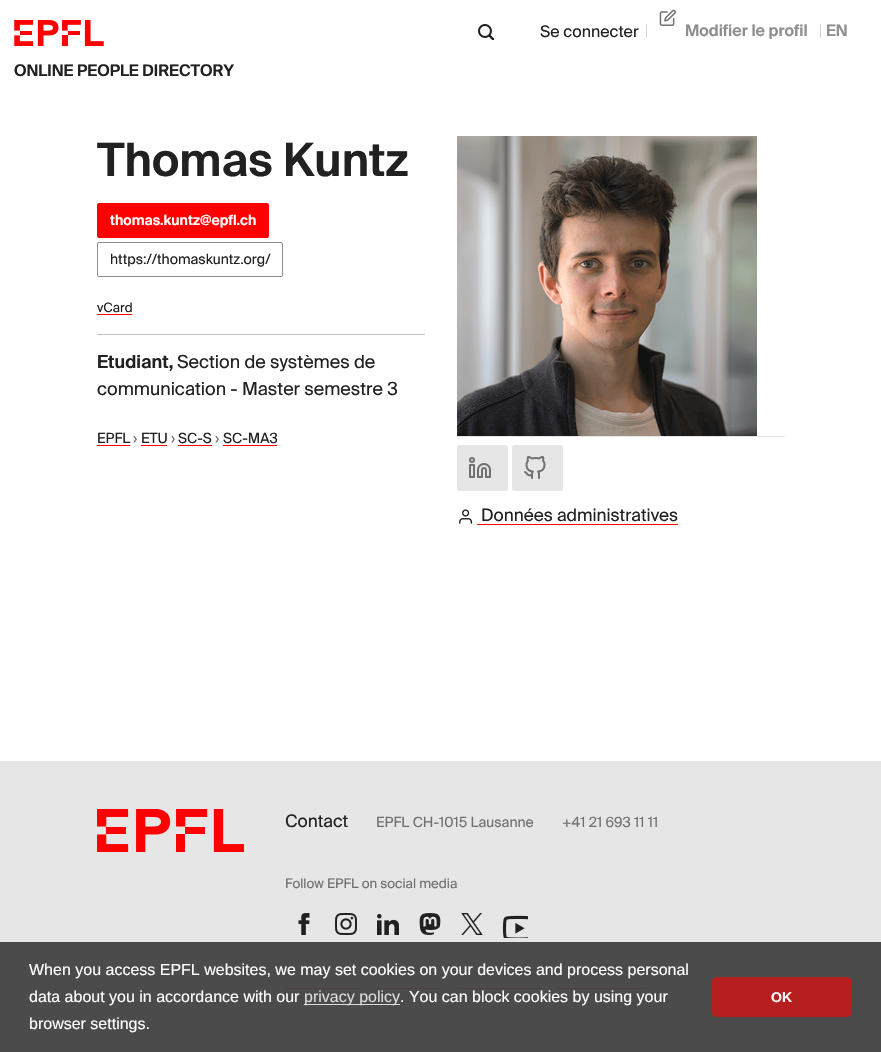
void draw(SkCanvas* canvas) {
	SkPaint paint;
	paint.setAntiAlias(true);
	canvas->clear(0xffffffff);
	canvas->drawImageRect(SkImages::DeferredFromEncodedData(SkData::MakeFromFileName("img1.png")), SkRect::MakeXYWH(14, 20, 90, 26), SkSamplingOptions());
	canvas->drawImageRect(SkImages::DeferredFromEncodedData(SkData::MakeFromFileName("img2.png")), SkRect::MakeXYWH(478, 24, 16, 16), SkSamplingOptions());
	SkFont f1(fontMgr->matchFamilyStyle("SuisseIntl", SkFontStyle::Normal()), 16);
	f1.setSubpixel(true);
	paint.setColor(0xff212121);
	canvas->drawString("Se connecter", 540, 37, f1, paint);
	paint.setColor(0xffd5d5d5);
	canvas->drawRect(SkRect::MakeXYWH(646, 24, 1, 14), paint);
	canvas->drawImageRect(SkImages::DeferredFromEncodedData(SkData::MakeFromFileName("img3.png")), SkRect::MakeXYWH(659, 9, 17, 17), SkSamplingOptions());
	SkFont f2(fontMgr->matchFamilyStyle("SuisseIntl", SkFontStyle(600, SkFontStyle::kNormal_Width, SkFontStyle::kUpright_Slant)), 16);
	f2.setSubpixel(true);
	paint.setColor(0xff8e8e8e);
	canvas->drawString("Modifier le profil", 685, 36, f2, paint);
	paint.setColor(0xffd5d5d5);
	canvas->drawRect(SkRect::MakeXYWH(820, 24, 1, 14), paint);
	paint.setColor(0xff8e8e8e);
	canvas->drawString("EN", 826, 36, f2, paint);
	paint.setColor(0xff212121);
	canvas->drawString("ONLINE PEOPLE DIRECTORY", 14, 76, f2, paint);
	SkFont f3(fontMgr->matchFamilyStyle("SuisseIntl", SkFontStyle(600, SkFontStyle::kNormal_Width, SkFontStyle::kUpright_Slant)), 46);
	f3.setSubpixel(true);
	canvas->drawString("Thomas Kuntz", 97, 176, f3, paint);
	paint.setColor(0xffff0000);
	canvas->drawRoundRect(SkRect::MakeXYWH(97.5, 203.5, 171, 34), 1.5, 1.5, paint);
	paint.setStroke(true);
	paint.setStrokeWidth(1);
	canvas->drawRoundRect(SkRect::MakeXYWH(97.5, 203.5, 171, 34), 1.5, 1.5, paint);
	SkFont f4(fontMgr->matchFamilyStyle("SuisseIntl", SkFontStyle(600, SkFontStyle::kNormal_Width, SkFontStyle::kUpright_Slant)), 14);
	f4.setSubpixel(true);
	paint.setStroke(false);
	paint.setColor(0xffffffff);
	canvas->drawString("thomas.kuntz@epfl.ch", 110, 225, f4, paint);
	paint.setStroke(true);
	paint.setColor(0xff8e8e8e);
	canvas->drawRoundRect(SkRect::MakeXYWH(97.5, 242.5, 185, 34), 1.5, 1.5, paint);
	SkFont f5(fontMgr->matchFamilyStyle("SuisseIntl", SkFontStyle::Normal()), 14);
	f5.setSubpixel(true);
	paint.setStroke(false);
	paint.setColor(0xff212121);
	canvas->drawString("https://thomaskuntz.org/", 110, 264, f5, paint);
	SkFont f6(fontMgr->matchFamilyStyle("SuisseIntl", SkFontStyle::Normal()), 13);
	f6.setSubpixel(true);
	canvas->drawString("vCard", 97, 312, f6, paint);
	paint.setColor(0xffff0000);
	canvas->drawRect(SkRect::MakeXYWH(97, 314, 35, 1), paint);
	paint.setColor(0xffc1c1c1);
	canvas->drawRect(SkRect::MakeXYWH(97, 334, 328, 1), paint);
	SkFont f7(fontMgr->matchFamilyStyle("SuisseIntl", SkFontStyle(600, SkFontStyle::kNormal_Width, SkFontStyle::kUpright_Slant)), 18);
	f7.setSubpixel(true);
	paint.setColor(0xff212121);
	canvas->drawString("Etudiant,", 97, 368, f7, paint);
	SkFont f8(fontMgr->matchFamilyStyle("SuisseIntl", SkFontStyle::Normal()), 18);
	f8.setSubpixel(true);
	canvas->drawString("Section de systèmes de", 177, 368, f8, paint);
	canvas->drawString("communication - Master semestre 3", 97, 395, f8, paint);
	canvas->drawString("EPFL", 97, 443, f5, paint);
	paint.setColor(0xff707070);
	canvas->drawString("›", 133, 443, f5, paint);
	paint.setColor(0xffff0000);
	canvas->drawRect(SkRect::MakeXYWH(97, 445, 33, 1), paint);
	canvas->drawRect(SkRect::MakeXYWH(141, 445, 26, 1), paint);
	paint.setColor(0xff212121);
	canvas->drawString("ETU", 141, 443, f5, paint);
	paint.setColor(0xff707070);
	canvas->drawString("›", 171, 443, f5, paint);
	paint.setColor(0xffff0000);
	canvas->drawRect(SkRect::MakeXYWH(178, 445, 34, 1), paint);
	paint.setColor(0xff212121);
	canvas->drawString("SC-S", 178, 443, f5, paint);
	paint.setColor(0xff707070);
	canvas->drawString("›", 215, 443, f5, paint);
	paint.setColor(0xffff0000);
	canvas->drawRect(SkRect::MakeXYWH(223, 445, 54, 1), paint);
	paint.setColor(0xff212121);
	canvas->drawString("SC-MA3", 223, 443, f5, paint);
	canvas->drawImageRect(SkImages::DeferredFromEncodedData(SkData::MakeFromFileName("img4.png")), SkRect::MakeXYWH(457, 136, 300, 300), SkSamplingOptions());
	paint.setColor(0xffe6e6e6);
	canvas->drawRect(SkRect::MakeXYWH(457, 436, 328, 1), paint);
	canvas->drawRoundRect(SkRect::MakeXYWH(457, 445, 51, 46), 2.5, 2.5, paint);
	canvas->drawImageRect(SkImages::DeferredFromEncodedData(SkData::MakeFromFileName("img5.png")), SkRect::MakeXYWH(469, 457, 22, 21), SkSamplingOptions());
	canvas->drawRoundRect(SkRect::MakeXYWH(512, 445, 51, 46), 2.5, 2.5, paint);
	canvas->drawImageRect(SkImages::DeferredFromEncodedData(SkData::MakeFromFileName("img6.png")), SkRect::MakeXYWH(524, 456, 22, 23), SkSamplingOptions());
	canvas->drawImageRect(SkImages::DeferredFromEncodedData(SkData::MakeFromFileName("img7.png")), SkRect::MakeXYWH(459, 509, 14, 15), SkSamplingOptions());
	SkFont f9(fontMgr->matchFamilyStyle("SuisseIntl", SkFontStyle::Normal()), 17.25);
	f9.setSubpixel(true);
	paint.setColor(0xff212121);
	canvas->drawString("Données administratives", 481, 521, f9, paint);
	paint.setColor(0xffff0000);
	canvas->drawRect(SkRect::MakeXYWH(477, 524, 201, 1), paint);
	paint.setColor(0xffe6e6e6);
	canvas->drawRect(SkRect::MakeXYWH(0, 761, 881, 181), paint);
	paint.setColor(0xff4b4b4b);
	canvas->drawRect(SkRect::MakeXYWH(0, 942, 881, 110), paint);
	canvas->drawImageRect(SkImages::DeferredFromEncodedData(SkData::MakeFromFileName("img8.png")), SkRect::MakeXYWH(97, 809, 147, 43), SkSamplingOptions());
	paint.setColor(0xff212121);
	canvas->drawString("Contact", 285, 827, f9, paint);
	paint.setColor(0xff707070);
	canvas->drawString("EPFL CH-1015 Lausanne", 376, 827, f5, paint);
	canvas->drawString("+41 21 693 11 11", 562, 827, f5, paint);
	SkFont f10(fontMgr->matchFamilyStyle("SuisseIntl", SkFontStyle::Normal()), 13.25);
	f10.setSubpixel(true);
	canvas->drawString("Follow EPFL on social media", 285, 888, f10, paint);
	canvas->drawImageRect(SkImages::DeferredFromEncodedData(SkData::MakeFromFileName("img9.png")), SkRect::MakeXYWH(298, 913, 12, 22), SkSamplingOptions());
	canvas->drawImageRect(SkImages::DeferredFromEncodedData(SkData::MakeFromFileName("img10.png")), SkRect::MakeXYWH(335, 913, 22, 22), SkSamplingOptions());
	canvas->drawImageRect(SkImages::DeferredFromEncodedData(SkData::MakeFromFileName("img11.png")), SkRect::MakeXYWH(377, 913, 22, 22), SkSamplingOptions());
	canvas->drawImageRect(SkImages::DeferredFromEncodedData(SkData::MakeFromFileName("img12.png")), SkRect::MakeXYWH(419, 913, 22, 22), SkSamplingOptions());
	canvas->drawImageRect(SkImages::DeferredFromEncodedData(SkData::MakeFromFileName("img13.png")), SkRect::MakeXYWH(461, 913, 22, 22), SkSamplingOptions());
	canvas->drawImageRect(SkImages::DeferredFromEncodedData(SkData::MakeFromFileName("img14.png")), SkRect::MakeXYWH(502, 915, 26, 23), SkSamplingOptions());
	paint.setColor(0xff4c4242);
	canvas->drawRect(SkRect::MakeXYWH(285, 988, 76, 1), paint);
	canvas->drawRect(SkRect::MakeXYWH(377, 988, 65, 1), paint);
	canvas->drawRect(SkRect::MakeXYWH(458, 988, 82, 1), paint);
	canvas->drawRect(SkRect::MakeXYWH(556, 988, 90, 1), paint);
	SkFont f11(fontMgr->matchFamilyStyle("Liberation Sans", SkFontStyle::Normal()), 16);
	f11.setSubpixel(true);
	paint.setColor(0xffffffff);
	canvas->drawString("When you access EPFL websites, we may set cookies on your devices and process personal", 29, 975, f11, paint);
	canvas->drawString("data about you in accordance with our", 29, 1002, f11, paint);
	paint.setColor(0xccffffff);
	canvas->drawRect(SkRect::MakeXYWH(304, 1004, 96, 1), paint);
	paint.setColor(0xffdcdcdc);
	canvas->drawString("privacy policy", 304, 1002, f11, paint);
	paint.setColor(0xffffffff);
	canvas->drawString(". You can block cookies by using your", 400, 1002, f11, paint);
	canvas->drawString("browser settings.", 29, 1029, f11, paint);
	paint.setColor(0xffb51f1f);
	canvas->drawRoundRect(SkRect::MakeXYWH(712, 977, 140, 40), 5, 5, paint);
	SkFont f12(fontMgr->matchFamilyStyle("Liberation Sans", SkFontStyle::Bold()), 14);
	f12.setSubpixel(true);
	paint.setColor(0xffffffff);
	canvas->drawString("OK", 771, 1002, f12, paint);
}
